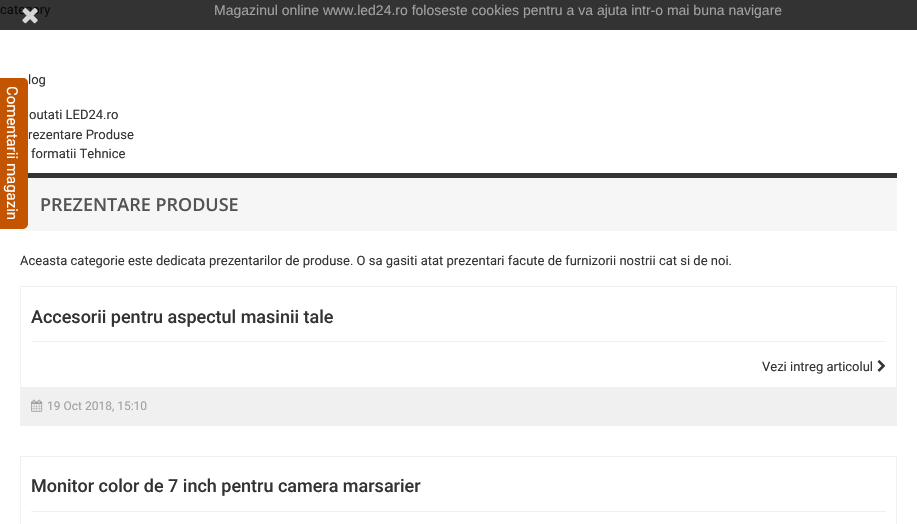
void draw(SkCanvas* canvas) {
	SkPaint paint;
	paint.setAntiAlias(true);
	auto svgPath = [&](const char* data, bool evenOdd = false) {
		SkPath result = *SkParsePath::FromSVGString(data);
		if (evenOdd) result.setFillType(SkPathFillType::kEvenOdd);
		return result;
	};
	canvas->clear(0xffffffff);
	paint.setColor(0xff333333);
	canvas->drawRect(SkRect::MakeXYWH(0, 0, 917, 30), paint);
	SkFont f1(fontMgr->matchFamilyStyle("Roboto", SkFontStyle::Normal()), 13);
	f1.setSubpixel(true);
	paint.setColor(0xff0a0a0a);
	canvas->drawString("category", 0, 14, f1, paint);
	canvas->drawImageRect(SkImages::DeferredFromEncodedData(SkData::MakeFromFileName("img1.png")), SkRect::MakeXYWH(22, 8, 16, 16), SkSamplingOptions());
	SkFont f2(fontMgr->matchFamilyStyle("Liberation Sans", SkFontStyle::Normal()), 14);
	f2.setSubpixel(true);
	paint.setColor(0xffa1a1a1);
	canvas->drawString("Magazinul online www.led24.ro foloseste cookies pentru a va ajuta intr-o mai buna navigare", 214, 15, f2, paint);
	paint.setColor(0xfff6f6f6);
	canvas->drawRect(SkRect::MakeXYWH(20, 178, 877, 53), paint);
	paint.setColor(0xff333333);
	canvas->drawRect(SkRect::MakeXYWH(20, 173, 877, 5), paint);
	paint.setColor(0xffc45500);
	canvas->drawPath(svgPath("M28 83V224C28 226 26 229 23 229H0C-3 229-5 226-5 224V83C-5 80-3 78 0 78H23C26 78 28 80 28 83Z"), paint);
	SkFont f3(fontMgr->matchFamilyStyle("Roboto", SkFontStyle::Normal()), 15);
	f3.setSubpixel(true);
	paint.setColor(0xffffffff);
	canvas->save();
	canvas->rotate(90, 7, 86);
	canvas->drawString("Comentarii magazin", 7, 86, f3, paint);
	canvas->restore();
	paint.setColor(0xff333333);
	canvas->drawString("log", 28, 84, f1, paint);
	canvas->drawString("outati LED24.ro", 29, 119, f1, paint);
	canvas->drawString("rezentare Produse", 28, 139, f1, paint);
	canvas->drawString("formatii Tehnice", 31, 158, f1, paint);
	SkFont f4(fontMgr->matchFamilyStyle("Open Sans", SkFontStyle(600, SkFontStyle::kNormal_Width, SkFontStyle::kUpright_Slant)), 18);
	f4.setSubpixel(true);
	paint.setColor(0xff555454);
	canvas->drawString("PREZENTARE PRODUSE", 40, 211, f4, paint);
	paint.setColor(0xff333333);
	canvas->drawString("Aceasta categorie este dedicata prezentarilor de produse. O sa gasiti atat prezentari facute de furnizorii nostrii cat si de noi.", 20, 265, f1, paint);
	paint.setStroke(true);
	paint.setStrokeWidth(1);
	paint.setColor(0xfff0f0f0);
	canvas->drawRect(SkRect::MakeXYWH(20.5, 286.5, 876, 139), paint);
	paint.setStroke(false);
	canvas->drawRect(SkRect::MakeXYWH(31, 341, 855, 1), paint);
	SkFont f5(fontMgr->matchFamilyStyle("Roboto", SkFontStyle(500, SkFontStyle::kNormal_Width, SkFontStyle::kUpright_Slant)), 18);
	f5.setSubpixel(true);
	paint.setColor(0xff333333);
	canvas->drawString("Accesorii pentru aspectul masinii tale", 31, 323, f5, paint);
	canvas->drawString("Vezi intreg articolul", 762, 371, f1, paint);
	canvas->drawImageRect(SkImages::DeferredFromEncodedData(SkData::MakeFromFileName("img2.png")), SkRect::MakeXYWH(877, 360, 9, 12), SkSamplingOptions());
	paint.setColor(0xfff0f0f0);
	canvas->drawRect(SkRect::MakeXYWH(21, 387, 875, 38), paint);
	canvas->drawImageRect(SkImages::DeferredFromEncodedData(SkData::MakeFromFileName("img3.png")), SkRect::MakeXYWH(31, 399, 12, 13), SkSamplingOptions());
	SkFont f6(fontMgr->matchFamilyStyle("Roboto", SkFontStyle::Normal()), 12);
	f6.setSubpixel(true);
	paint.setColor(0xffa1a1a1);
	canvas->drawString("19 Oct 2018, 15:10", 47, 410, f6, paint);
	paint.setStroke(true);
	paint.setColor(0xfff0f0f0);
	canvas->drawRect(SkRect::MakeXYWH(20.5, 456.5, 876, 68), paint);
	paint.setStroke(false);
	canvas->drawRect(SkRect::MakeXYWH(31, 511, 855, 1), paint);
	paint.setColor(0xff333333);
	canvas->drawString("Monitor color de 7 inch pentru camera marsarier", 31, 492, f5, paint);
}
